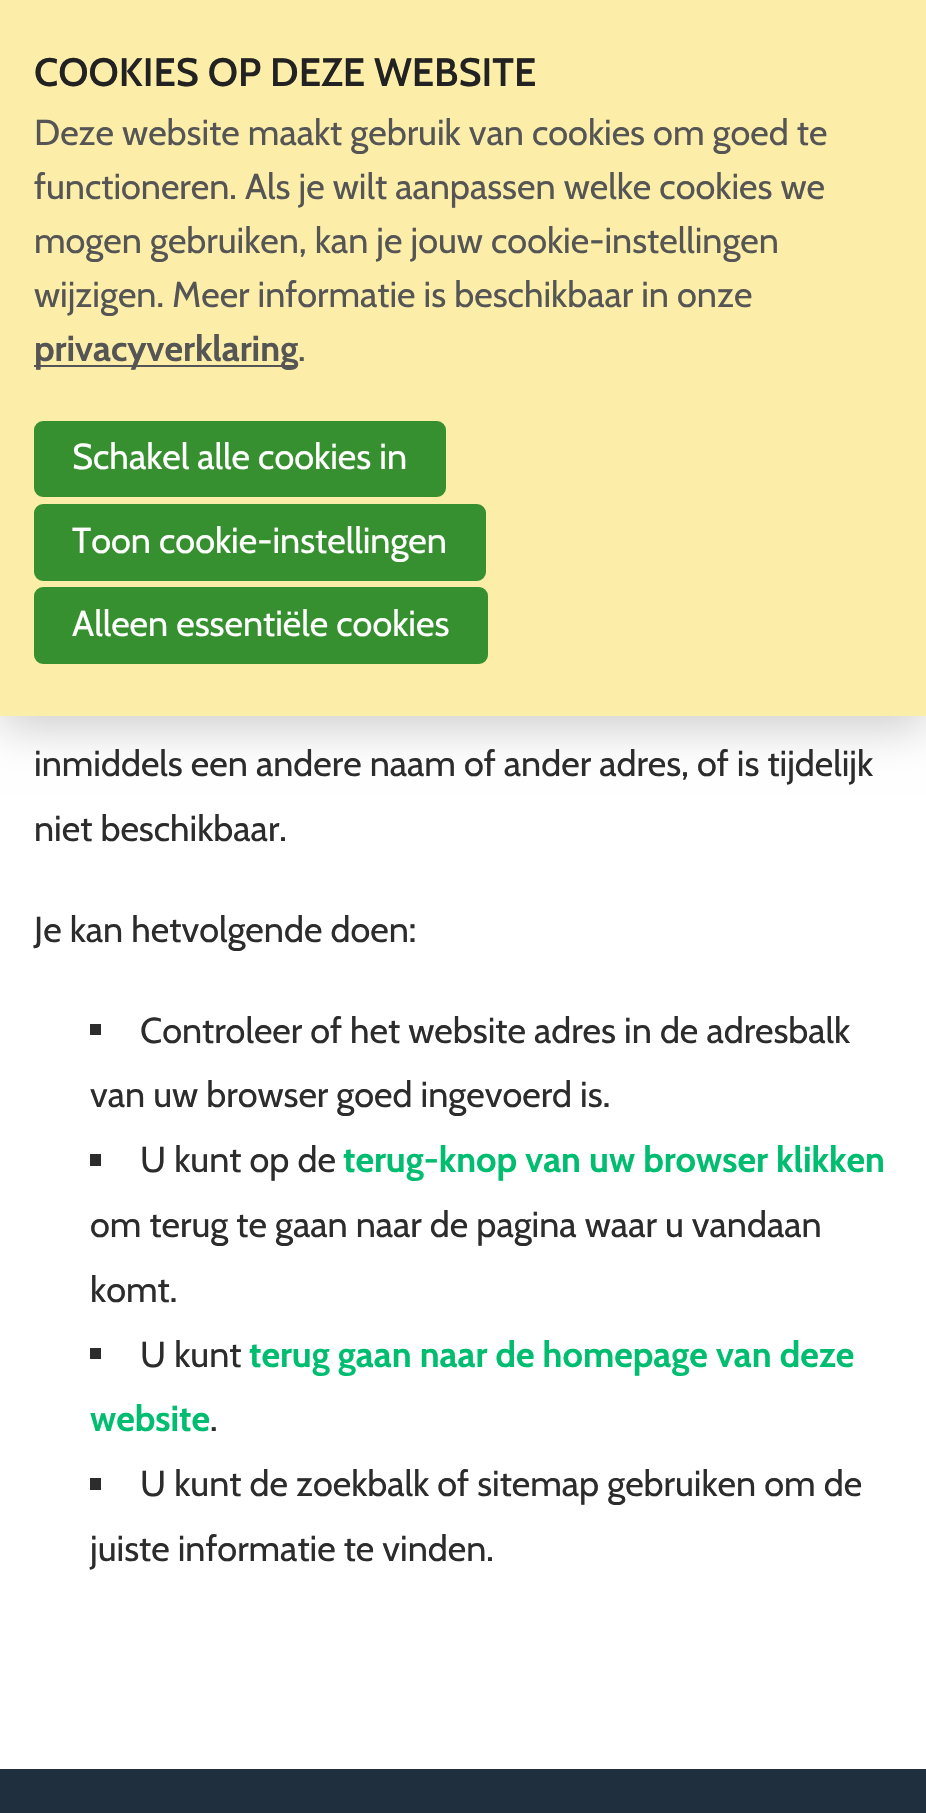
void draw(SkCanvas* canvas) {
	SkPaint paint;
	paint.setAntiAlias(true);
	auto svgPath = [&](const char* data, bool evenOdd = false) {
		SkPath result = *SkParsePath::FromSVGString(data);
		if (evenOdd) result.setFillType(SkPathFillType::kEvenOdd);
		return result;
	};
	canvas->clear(0xffffffff);
	paint.setColor(0xfff2f5f6);
	canvas->drawRect(SkRect::MakeXYWH(623, 90, 303, 146), paint);
	canvas->save();
	canvas->clipPath(svgPath("M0 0H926V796H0ZM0 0H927V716H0Z", true), true);
	paint.setColor(0x33000000);
	paint.setMaskFilter(SkMaskFilter::MakeBlur(kNormal_SkBlurStyle, 22.5));
	canvas->drawRect(SkRect::MakeXYWH(0, 11, 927, 716), paint);
	paint.setMaskFilter(nullptr);
	canvas->restore();
	paint.setColor(0xf2fceda3);
	canvas->drawRect(SkRect::MakeXYWH(0, 0, 926, 716), paint);
	SkFont f1(fontMgr->matchFamilyStyle("Cabin", SkFontStyle(600, SkFontStyle::kNormal_Width, SkFontStyle::kUpright_Slant)), 39.6);
	f1.setSubpixel(true);
	paint.setColor(0xff222222);
	canvas->drawString("COOKIES OP DEZE WEBSITE", 34, 86, f1, paint);
	SkFont f2(fontMgr->matchFamilyStyle("Cabin", SkFontStyle::Normal()), 36);
	f2.setSubpixel(true);
	paint.setColor(0xff555555);
	canvas->drawString("Deze website maakt gebruik van cookies om goed te", 34, 145, f2, paint);
	canvas->drawString("functioneren. Als je wilt aanpassen welke cookies we", 34, 199, f2, paint);
	canvas->drawString("mogen gebruiken, kan je jouw cookie-instellingen", 34, 253, f2, paint);
	canvas->drawString("wijzigen. Meer informatie is beschikbaar in onze", 34, 307, f2, paint);
	canvas->drawRect(SkRect::MakeXYWH(34, 365, 263, 2), paint);
	SkFont f3(fontMgr->matchFamilyStyle("Cabin", SkFontStyle::Bold()), 36);
	f3.setSubpixel(true);
	canvas->drawString("privacyverklaring", 34, 361, f3, paint);
	canvas->drawString(".", 298, 361, f2, paint);
	paint.setColor(0xff37902f);
	canvas->drawRoundRect(SkRect::MakeXYWH(35, 422, 410, 74), 8, 8, paint);
	paint.setStroke(true);
	paint.setStrokeWidth(2);
	canvas->drawRoundRect(SkRect::MakeXYWH(35, 422, 410, 74), 8, 8, paint);
	paint.setStroke(false);
	paint.setColor(0xffffffff);
	canvas->drawString("Schakel alle cookies in", 72, 469, f2, paint);
	paint.setColor(0xff37902f);
	canvas->drawRoundRect(SkRect::MakeXYWH(35, 505, 450, 75), 8, 8, paint);
	paint.setStroke(true);
	canvas->drawRoundRect(SkRect::MakeXYWH(35, 505, 450, 75), 8, 8, paint);
	paint.setStroke(false);
	paint.setColor(0xffffffff);
	canvas->drawString("Toon cookie-instellingen", 72, 553, f2, paint);
	paint.setColor(0xff37902f);
	canvas->drawRoundRect(SkRect::MakeXYWH(35, 588, 452, 75), 8, 8, paint);
	paint.setStroke(true);
	canvas->drawRoundRect(SkRect::MakeXYWH(35, 588, 452, 75), 8, 8, paint);
	paint.setStroke(false);
	paint.setColor(0xffffffff);
	canvas->drawString("Alleen essentiële cookies", 72, 636, f2, paint);
	paint.setColor(0xff2c2c2c);
	canvas->drawString("inmiddels een andere naam of ander adres, of is tijdelijk", 34, 776, f2, paint);
	canvas->drawString("niet beschikbaar.", 34, 841, f2, paint);
	canvas->drawString("Je kan hetvolgende doen:", 34, 942, f2, paint);
	canvas->drawRect(SkRect::MakeXYWH(90, 1024, 11, 11), paint);
	canvas->drawString("Controleer of het website adres in de adresbalk", 140, 1043, f2, paint);
	canvas->drawString("van uw browser goed ingevoerd is.", 90, 1107, f2, paint);
	canvas->drawRect(SkRect::MakeXYWH(90, 1154, 11, 12), paint);
	canvas->drawString("U kunt op de", 140, 1172, f2, paint);
	paint.setColor(0xff00bd70);
	canvas->drawString("terug-knop van uw browser klikken", 343, 1172, f3, paint);
	paint.setColor(0xff2c2c2c);
	canvas->drawString("om terug te gaan naar de pagina waar u vandaan", 90, 1237, f2, paint);
	canvas->drawString("komt.", 90, 1302, f2, paint);
	canvas->drawRect(SkRect::MakeXYWH(90, 1348, 11, 11), paint);
	canvas->drawString("U kunt", 140, 1367, f2, paint);
	paint.setColor(0xff00bd70);
	canvas->drawString("terug gaan naar de homepage van deze", 249, 1367, f3, paint);
	canvas->drawString("website", 90, 1431, f3, paint);
	paint.setColor(0xff2c2c2c);
	canvas->drawString(".", 210, 1431, f2, paint);
	canvas->drawRect(SkRect::MakeXYWH(90, 1478, 11, 12), paint);
	canvas->drawString("U kunt de zoekbalk of sitemap gebruiken om de", 140, 1496, f2, paint);
	canvas->drawString("juiste informatie te vinden.", 90, 1561, f2, paint);
	paint.setColor(0xff202f3e);
	canvas->drawRect(SkRect::MakeXYWH(0, 1769, 926, 44), paint);
}
